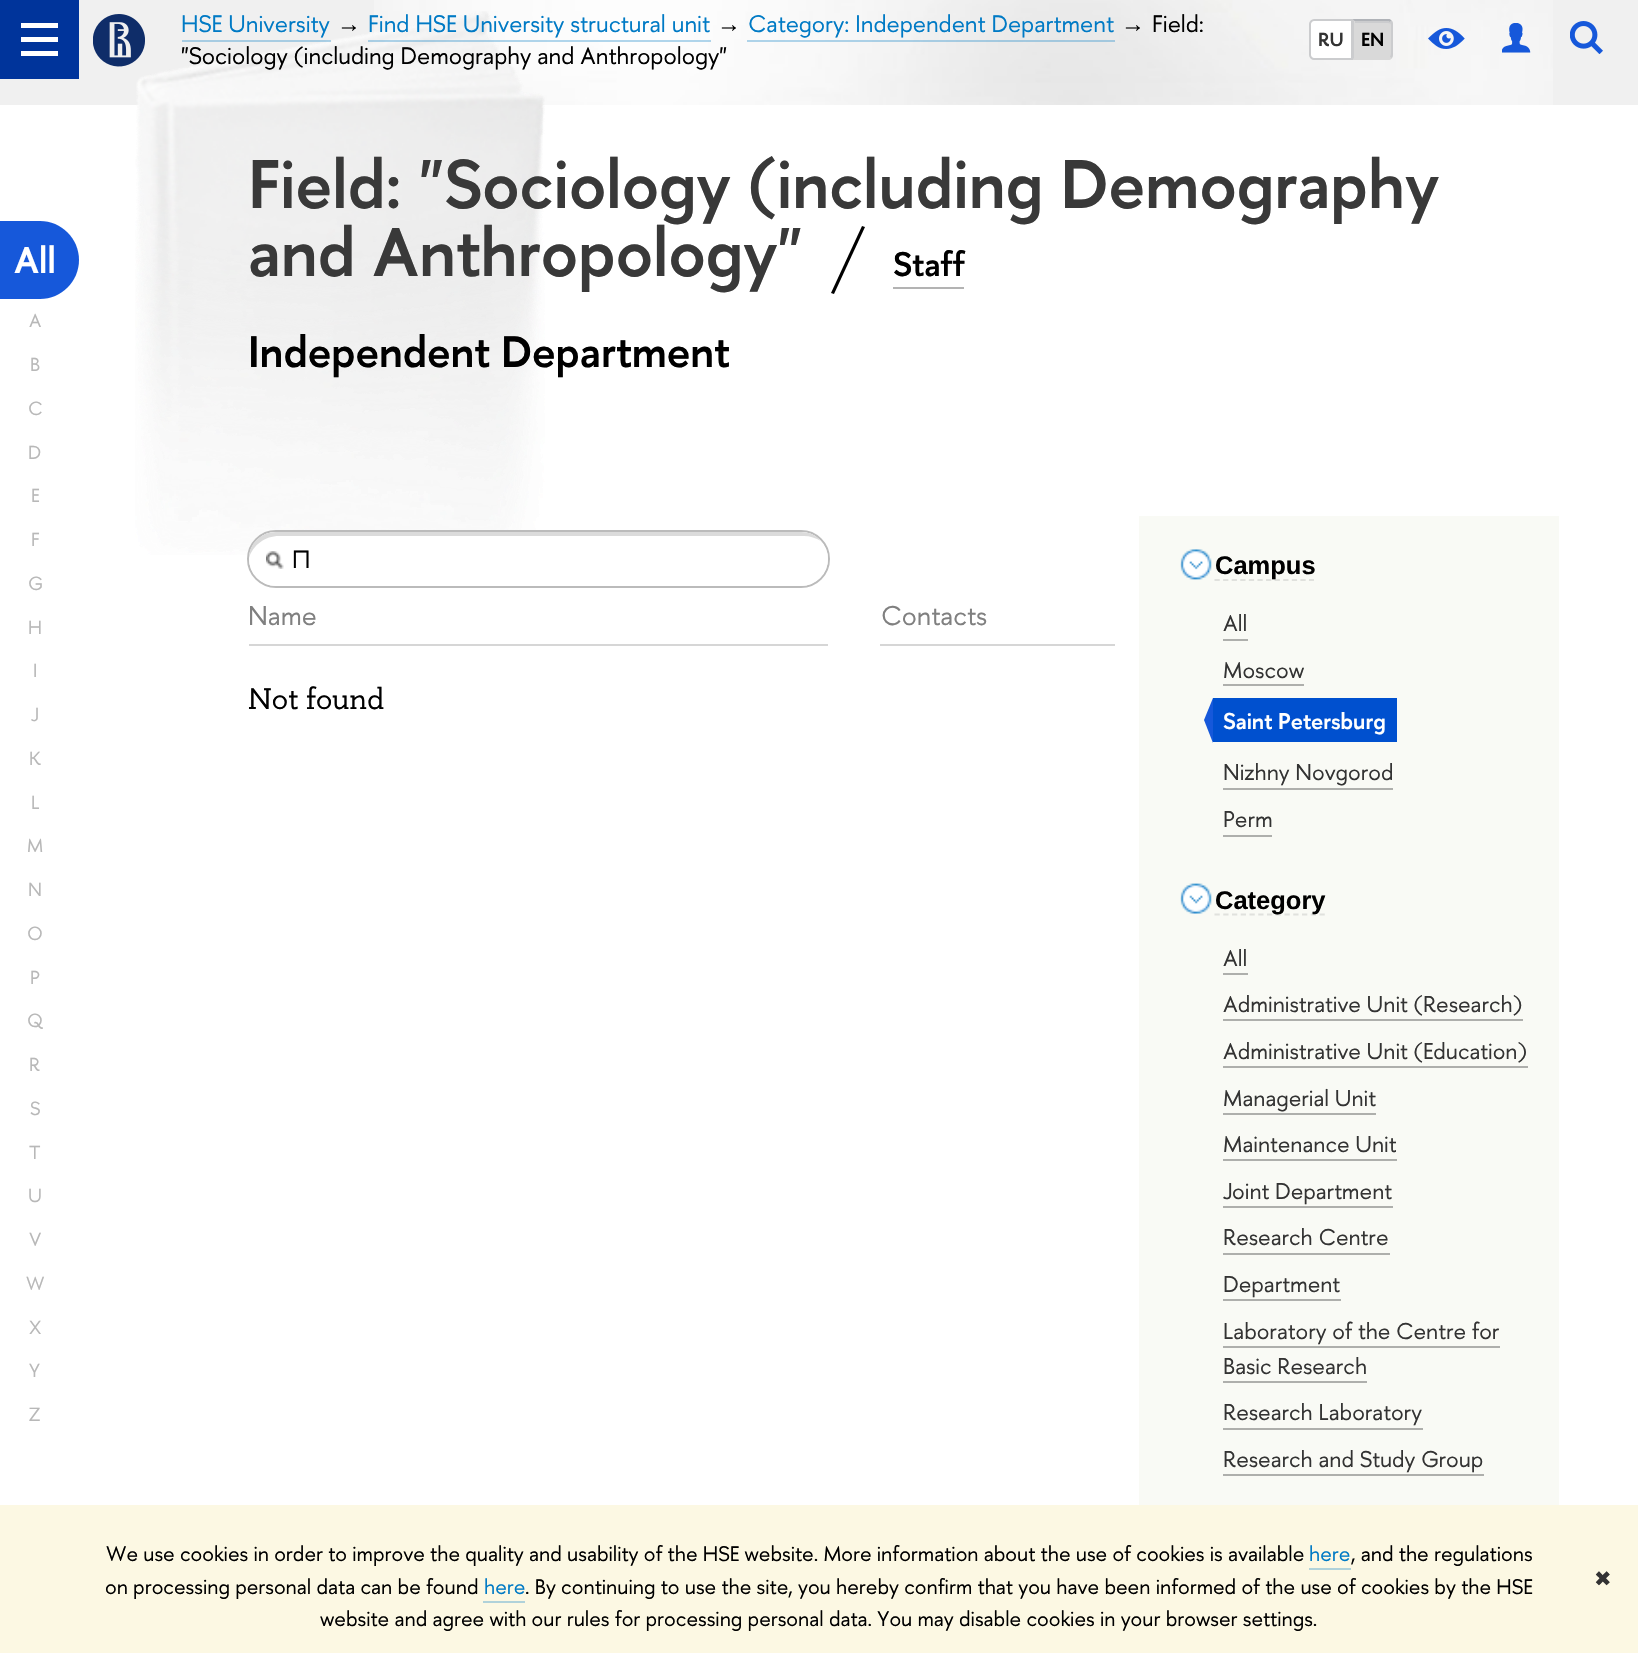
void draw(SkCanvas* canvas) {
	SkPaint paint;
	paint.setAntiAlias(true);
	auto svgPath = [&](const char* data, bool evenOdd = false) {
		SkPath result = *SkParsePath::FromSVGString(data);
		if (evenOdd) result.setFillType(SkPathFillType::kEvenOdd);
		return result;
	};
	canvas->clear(0xffffffff);
	paint.setColor(0xfff0f0f0);
	canvas->drawRect(SkRect::MakeXYWH(0, 0, 1638, 105), paint);
	canvas->drawImageRect(SkImages::DeferredFromEncodedData(SkData::MakeFromFileName("img1.png")), SkRect::MakeXYWH(374, 0, 1179, 105), SkSamplingOptions());
	paint.setColor(0xff00349b);
	canvas->drawRect(SkRect::MakeXYWH(0, 0, 79, 79), paint);
	paint.setColor(0xffffffff);
	canvas->drawRect(SkRect::MakeXYWH(21, 23, 37, 5), paint);
	canvas->drawRect(SkRect::MakeXYWH(21, 37, 37, 5), paint);
	canvas->drawRect(SkRect::MakeXYWH(21, 51, 37, 5), paint);
	canvas->drawImageRect(SkImages::DeferredFromEncodedData(SkData::MakeFromFileName("img6.png")), SkRect::MakeXYWH(135, 11, 410, 544), SkSamplingOptions());
	canvas->drawImageRect(SkImages::DeferredFromEncodedData(SkData::MakeFromFileName("img2.png")), SkRect::MakeXYWH(93, 14, 52, 53), SkSamplingOptions());
	SkFont f1(fontMgr->matchFamilyStyle("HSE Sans", SkFontStyle::Normal()), 23.8);
	f1.setSubpixel(true);
	paint.setColor(0xff007ac5);
	canvas->drawString("HSE University", 181, 32, f1, paint);
	paint.setColor(0x4d007ac5);
	canvas->drawRect(SkRect::MakeXYWH(182, 40, 149, 2), paint);
	SkFont f2(fontMgr->matchFamilyStyle("Liberation Sans", SkFontStyle::Normal()), 23.8);
	f2.setSubpixel(true);
	paint.setColor(0xff000000);
	canvas->drawString("→", 337, 32, f2, paint);
	paint.setColor(0xff007ac5);
	canvas->drawString("Find HSE University structural unit", 368, 32, f1, paint);
	paint.setColor(0x4d007ac5);
	canvas->drawRect(SkRect::MakeXYWH(368, 40, 343, 2), paint);
	paint.setColor(0xff000000);
	canvas->drawString("→", 717, 32, f2, paint);
	paint.setColor(0xff007ac5);
	canvas->drawString("Category: Independent Department", 748, 32, f1, paint);
	paint.setColor(0x4d007ac5);
	canvas->drawRect(SkRect::MakeXYWH(747, 40, 368, 2), paint);
	paint.setColor(0xff000000);
	canvas->drawString("→", 1121, 32, f2, paint);
	canvas->drawString("Field:", 1152, 32, f1, paint);
	canvas->drawString("\"Sociology (including Demography and Anthropology\"", 181, 64, f1, paint);
	paint.setColor(0xffffffff);
	canvas->drawPath(svgPath("M1314 20H1352V59H1314C1312 59 1310 57 1310 55V24C1310 22 1312 20 1314 20Z"), paint);
	paint.setStroke(true);
	paint.setStrokeWidth(2);
	paint.setColor(0xffcbccce);
	canvas->drawPath(svgPath("M1314 20H1352V59H1314C1312 59 1310 57 1310 55V24C1310 22 1312 20 1314 20Z"), paint);
	SkFont f3(fontMgr->matchFamilyStyle("HSE Sans", SkFontStyle(600, SkFontStyle::kNormal_Width, SkFontStyle::kUpright_Slant)), 19);
	f3.setSubpixel(true);
	paint.setStroke(false);
	paint.setColor(0xff333333);
	canvas->drawString("RU", 1318, 46, f3, paint);
	paint.setColor(0xffd9d9d9);
	canvas->drawPath(svgPath("M1353 19H1388C1391 19 1393 21 1393 24V55C1393 58 1391 60 1388 60H1353Z"), paint);
	paint.setColor(0xffcbccce);
	canvas->drawPath(svgPath("M1355 21V23H1388C1390 23 1391 24 1391 26C1391 23.5 1390 21 1387 21Z"), paint);
	paint.setColor(0xffb0b3b8);
	canvas->drawPath(svgPath("M1353 19.5V19H1389.5L1391.5 20.5L1390 22L1388.5 21H1354.5Z"), paint);
	paint.setColor(0xffcbccce);
	canvas->drawPath(svgPath("M1393 54V24C1393 23 1392.5 21.5 1391.5 20.5L1390 22L1391 24V49C1391 51 1391.5 54.5 1390 57L1391.5 58C1392.5 57 1393 55.5 1393 54Z"), paint);
	paint.setColor(0xffd9d9d9);
	canvas->drawPath(svgPath("M1353 59.5L1354 58H1388.5L1390 57L1391.5 58L1390 59.5Z"), paint);
	paint.setColor(0xffcbccce);
	canvas->drawPath(svgPath("M1354 21V58L1353 59V19.5L1354.5 21Z"), paint);
	paint.setColor(0xff000000);
	canvas->drawString("EN", 1361, 46, f3, paint);
	canvas->drawImageRect(SkImages::DeferredFromEncodedData(SkData::MakeFromFileName("img3.png")), SkRect::MakeXYWH(1428, 28, 37, 21), SkSamplingOptions());
	canvas->drawImageRect(SkImages::DeferredFromEncodedData(SkData::MakeFromFileName("img4.png")), SkRect::MakeXYWH(1502, 23, 29, 30), SkSamplingOptions());
	canvas->drawImageRect(SkImages::DeferredFromEncodedData(SkData::MakeFromFileName("img5.png")), SkRect::MakeXYWH(1570, 21, 33, 33), SkSamplingOptions());
	paint.setColor(0xff1658da);
	canvas->drawPath(svgPath("M0 221H40C61.5 221 79 238.5 79 260C79 281.5 61.5 299 40 299H0Z"), paint);
	SkFont f4(fontMgr->matchFamilyStyle("HSE Sans", SkFontStyle(600, SkFontStyle::kNormal_Width, SkFontStyle::kUpright_Slant)), 37);
	f4.setSubpixel(true);
	paint.setColor(0xffffffff);
	canvas->drawString("All", 14, 273, f4, paint);
	SkFont f5(fontMgr->matchFamilyStyle("HSE Sans", SkFontStyle::Normal()), 19);
	f5.setSubpixel(true);
	paint.setColor(0xffb8b8b8);
	canvas->drawString("A", 29, 327, f5, paint);
	canvas->drawString("B", 30, 371, f5, paint);
	canvas->drawString("C", 28, 415, f5, paint);
	canvas->drawString("D", 28, 459, f5, paint);
	canvas->drawString("E", 31, 502, f5, paint);
	canvas->drawString("F", 31, 546, f5, paint);
	canvas->drawString("G", 28, 590, f5, paint);
	canvas->drawString("H", 28, 634, f5, paint);
	canvas->drawString("I", 33, 677, f5, paint);
	canvas->drawString("J", 31, 721, f5, paint);
	canvas->drawString("K", 29, 765, f5, paint);
	canvas->drawString("L", 31, 809, f5, paint);
	canvas->drawString("M", 27, 852, f5, paint);
	canvas->drawString("N", 28, 896, f5, paint);
	canvas->drawString("O", 27, 940, f5, paint);
	canvas->drawString("P", 30, 984, f5, paint);
	canvas->drawString("Q", 27, 1027, f5, paint);
	canvas->drawString("R", 29, 1071, f5, paint);
	canvas->drawString("S", 30, 1115, f5, paint);
	canvas->drawString("T", 29, 1159, f5, paint);
	canvas->drawString("U", 28, 1202, f5, paint);
	canvas->drawString("V", 29, 1246, f5, paint);
	canvas->drawString("W", 26, 1290, f5, paint);
	canvas->drawString("X", 29, 1334, f5, paint);
	canvas->drawString("Y", 29, 1377, f5, paint);
	canvas->drawString("Z", 29, 1421, f5, paint);
	canvas->drawImageRect(SkImages::DeferredFromEncodedData(SkData::MakeFromFileName("img7.png")), SkRect::MakeXYWH(541, 108, 2, 27), SkSamplingOptions());
	SkFont f6(fontMgr->matchFamilyStyle("HSE Sans", SkFontStyle(600, SkFontStyle::kNormal_Width, SkFontStyle::kUpright_Slant)), 68.4);
	f6.setSubpixel(true);
	paint.setColor(0xff393939);
	canvas->drawString("Field: \"Sociology (including Demography", 248, 208, f6, paint);
	canvas->drawString("and Anthropology\"", 248, 276, f6, paint);
	paint.setColor(0xff000000);
	canvas->drawPath(svgPath("M862 226L865 227L834 294L831 293Z"), paint);
	SkFont f7(fontMgr->matchFamilyStyle("HSE Sans", SkFontStyle(600, SkFontStyle::kNormal_Width, SkFontStyle::kUpright_Slant)), 34);
	f7.setSubpixel(true);
	canvas->drawString("Staff", 893, 276, f7, paint);
	paint.setColor(0xffb3b3b3);
	canvas->drawRect(SkRect::MakeXYWH(893, 287, 71, 2), paint);
	SkFont f8(fontMgr->matchFamilyStyle("HSE Sans", SkFontStyle(600, SkFontStyle::kNormal_Width, SkFontStyle::kUpright_Slant)), 44);
	f8.setSubpixel(true);
	paint.setColor(0xff000000);
	canvas->drawString("Independent Department", 248, 367, f8, paint);
	paint.setStroke(true);
	paint.setColor(0xffbbbbbb);
	canvas->drawRoundRect(SkRect::MakeXYWH(248, 531, 581, 56), 28, 28, paint);
	paint.setStroke(false);
	paint.setColor(0xffffffff);
	canvas->drawRoundRect(SkRect::MakeXYWH(249, 532, 579, 54), 27, 27, paint);
	canvas->drawImageRect(SkImages::DeferredFromEncodedData(SkData::MakeFromFileName("img8.png")), SkRect::MakeXYWH(266, 551, 18, 18), SkSamplingOptions());
	paint.setColor(0xffdbdbdb);
	canvas->drawPath(svgPath("M279 536H804C810 536 816 538 821 541C816 535 809 532 801 532H276C261 532 249 544 249 558C253 545 265 536 279 536Z"), paint);
	SkFont f9(fontMgr->matchFamilyStyle("HSE Sans", SkFontStyle::Normal()), 25);
	f9.setSubpixel(true);
	paint.setColor(0xff000000);
	canvas->drawString("П", 292, 568, f9, paint);
	paint.setColor(0xffd6d6d6);
	canvas->drawRect(SkRect::MakeXYWH(249, 644, 579, 2), paint);
	SkFont f10(fontMgr->matchFamilyStyle("HSE Sans", SkFontStyle::Normal()), 27);
	f10.setSubpixel(true);
	paint.setColor(0xff808080);
	canvas->drawString("Name", 248, 625, f10, paint);
	paint.setColor(0xffd6d6d6);
	canvas->drawRect(SkRect::MakeXYWH(880, 644, 235, 2), paint);
	paint.setColor(0xff808080);
	canvas->drawString("Contacts", 881, 625, f10, paint);
	SkFont f11(fontMgr->matchFamilyStyle("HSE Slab", SkFontStyle::Normal()), 29.75);
	f11.setSubpixel(true);
	paint.setColor(0xff000000);
	canvas->drawString("Not found", 248, 709, f11, paint);
	paint.setColor(0xfff9faf5);
	canvas->drawRect(SkRect::MakeXYWH(1139, 516, 420, 989), paint);
	canvas->drawImageRect(SkImages::DeferredFromEncodedData(SkData::MakeFromFileName("img9.png")), SkRect::MakeXYWH(1180, 549, 32, 31), SkSamplingOptions());
	paint.setStroke(true);
	paint.setStrokeWidth(1.8);
	paint.setColor(0xffe0e1dd);
	paint.setPathEffect(SkDashPathEffect::Make({{5.25f, 3.34f}}, 0));
	canvas->drawPath(svgPath("M1214.5 580H1314"), paint);
	paint.setPathEffect(nullptr);
	SkFont f12(fontMgr->matchFamilyStyle("Liberation Sans", SkFontStyle::Bold()), 25.5);
	f12.setSubpixel(true);
	paint.setStroke(false);
	paint.setColor(0xff000000);
	canvas->drawString("Campus", 1215, 574, f12, paint);
	SkFont f13(fontMgr->matchFamilyStyle("HSE Sans", SkFontStyle::Normal()), 22.75);
	f13.setSubpixel(true);
	paint.setColor(0xff333333);
	canvas->drawString("All", 1223, 631, f13, paint);
	paint.setColor(0xffaeafac);
	canvas->drawRect(SkRect::MakeXYWH(1223, 639, 25, 2), paint);
	paint.setColor(0xff333333);
	canvas->drawString("Moscow", 1223, 678, f13, paint);
	paint.setColor(0xffaeafac);
	canvas->drawRect(SkRect::MakeXYWH(1223, 684, 81, 2), paint);
	paint.setColor(0xff0050cf);
	canvas->drawRect(SkRect::MakeXYWH(1213, 698, 184, 44), paint);
	paint.setColor(0xff1658da);
	canvas->drawPath(svgPath("M1213 698L1204 720L1213 743Z"), paint);
	SkFont f14(fontMgr->matchFamilyStyle("HSE Sans", SkFontStyle(600, SkFontStyle::kNormal_Width, SkFontStyle::kUpright_Slant)), 22.75);
	f14.setSubpixel(true);
	paint.setColor(0xffffffff);
	canvas->drawString("Saint Petersburg", 1223, 729, f14, paint);
	paint.setColor(0xff333333);
	canvas->drawString("Nizhny Novgorod", 1223, 780, f13, paint);
	paint.setColor(0xffaeafac);
	canvas->drawRect(SkRect::MakeXYWH(1223, 788, 170, 2), paint);
	paint.setColor(0xff333333);
	canvas->drawString("Perm", 1223, 827, f13, paint);
	paint.setColor(0xffaeafac);
	canvas->drawRect(SkRect::MakeXYWH(1223, 835, 49, 2), paint);
	canvas->drawImageRect(SkImages::DeferredFromEncodedData(SkData::MakeFromFileName("img10.png")), SkRect::MakeXYWH(1180, 883, 32, 31), SkSamplingOptions());
	paint.setStroke(true);
	paint.setColor(0xffe0e1dd);
	paint.setPathEffect(SkDashPathEffect::Make({{5.25f, 3.5f}}, 0));
	canvas->drawPath(svgPath("M1214.5 914.5H1325"), paint);
	paint.setPathEffect(nullptr);
	paint.setStroke(false);
	paint.setColor(0xff000000);
	canvas->drawString("Category", 1215, 909, f12, paint);
	paint.setColor(0xff333333);
	canvas->drawString("All", 1223, 966, f13, paint);
	paint.setColor(0xffaeafac);
	canvas->drawRect(SkRect::MakeXYWH(1223, 973, 25, 2), paint);
	paint.setColor(0xff333333);
	canvas->drawString("Administrative Unit (Research)", 1223, 1012, f13, paint);
	paint.setColor(0xffaeafac);
	canvas->drawRect(SkRect::MakeXYWH(1223, 1019, 300, 2), paint);
	paint.setColor(0xff333333);
	canvas->drawString("Administrative Unit (Education)", 1223, 1059, f13, paint);
	paint.setColor(0xffaeafac);
	canvas->drawRect(SkRect::MakeXYWH(1223, 1066, 305, 2), paint);
	paint.setColor(0xff333333);
	canvas->drawString("Managerial Unit", 1223, 1106, f13, paint);
	paint.setColor(0xffaeafac);
	canvas->drawRect(SkRect::MakeXYWH(1223, 1113, 153, 2), paint);
	paint.setColor(0xff333333);
	canvas->drawString("Maintenance Unit", 1223, 1152, f13, paint);
	paint.setColor(0xffaeafac);
	canvas->drawRect(SkRect::MakeXYWH(1223, 1159, 174, 2), paint);
	paint.setColor(0xff333333);
	canvas->drawString("Joint Department", 1223, 1199, f13, paint);
	paint.setColor(0xffaeafac);
	canvas->drawRect(SkRect::MakeXYWH(1223, 1206, 170, 2), paint);
	paint.setColor(0xff333333);
	canvas->drawString("Research Centre", 1223, 1245, f13, paint);
	paint.setColor(0xffaeafac);
	canvas->drawRect(SkRect::MakeXYWH(1223, 1253, 167, 2), paint);
	paint.setColor(0xff333333);
	canvas->drawString("Department", 1223, 1292, f13, paint);
	paint.setColor(0xffaeafac);
	canvas->drawRect(SkRect::MakeXYWH(1223, 1299, 118, 2), paint);
	paint.setColor(0xff333333);
	canvas->drawString("Laboratory of the Centre for", 1223, 1339, f13, paint);
	paint.setColor(0xffaeafac);
	canvas->drawRect(SkRect::MakeXYWH(1223, 1346, 277, 2), paint);
	paint.setColor(0xff333333);
	canvas->drawString("Basic Research", 1223, 1374, f13, paint);
	paint.setColor(0xffaeafac);
	canvas->drawRect(SkRect::MakeXYWH(1223, 1381, 144, 2), paint);
	paint.setColor(0xff333333);
	canvas->drawString("Research Laboratory", 1223, 1420, f13, paint);
	paint.setColor(0xffaeafac);
	canvas->drawRect(SkRect::MakeXYWH(1223, 1428, 200, 2), paint);
	paint.setColor(0xff333333);
	canvas->drawString("Research and Study Group", 1223, 1467, f13, paint);
	paint.setColor(0xffaeafac);
	canvas->drawRect(SkRect::MakeXYWH(1223, 1474, 261, 2), paint);
	paint.setColor(0xfffcf8e3);
	canvas->drawRect(SkRect::MakeXYWH(0, 1505, 1638, 148), paint);
	SkFont f15(fontMgr->matchFamilyStyle("HSE Sans", SkFontStyle::Normal()), 21);
	f15.setSubpixel(true);
	paint.setColor(0xff000000);
	canvas->drawString("We use cookies in order to improve the quality and usability of the HSE website. More information about the use of cookies is available", 106, 1561, f15, paint);
	paint.setColor(0xff007ac5);
	canvas->drawString("here", 1309, 1561, f15, paint);
	paint.setColor(0xffb0d2da);
	canvas->drawRect(SkRect::MakeXYWH(1309, 1568, 42, 2), paint);
	paint.setColor(0xff000000);
	canvas->drawString(", and the regulations", 1351, 1561, f15, paint);
	canvas->drawString("on processing personal data can be found", 105, 1594, f15, paint);
	paint.setColor(0xff007ac5);
	canvas->drawString("here", 484, 1594, f15, paint);
	paint.setColor(0xffb0d2da);
	canvas->drawRect(SkRect::MakeXYWH(483, 1601, 42, 2), paint);
	paint.setColor(0xff000000);
	canvas->drawString(". By continuing to use the site, you hereby confirm that you have been informed of the use of cookies by the HSE", 525, 1594, f15, paint);
	canvas->drawString("website and agree with our rules for processing personal data. You may disable cookies in your browser settings.", 320, 1626, f15, paint);
	SkFont f16(fontMgr->matchFamilyStyle("DejaVu Sans", SkFontStyle::Normal()), 21);
	f16.setSubpixel(true);
	paint.setColor(0xff333333);
	canvas->drawString("✖", 1594, 1586, f16, paint);
}
